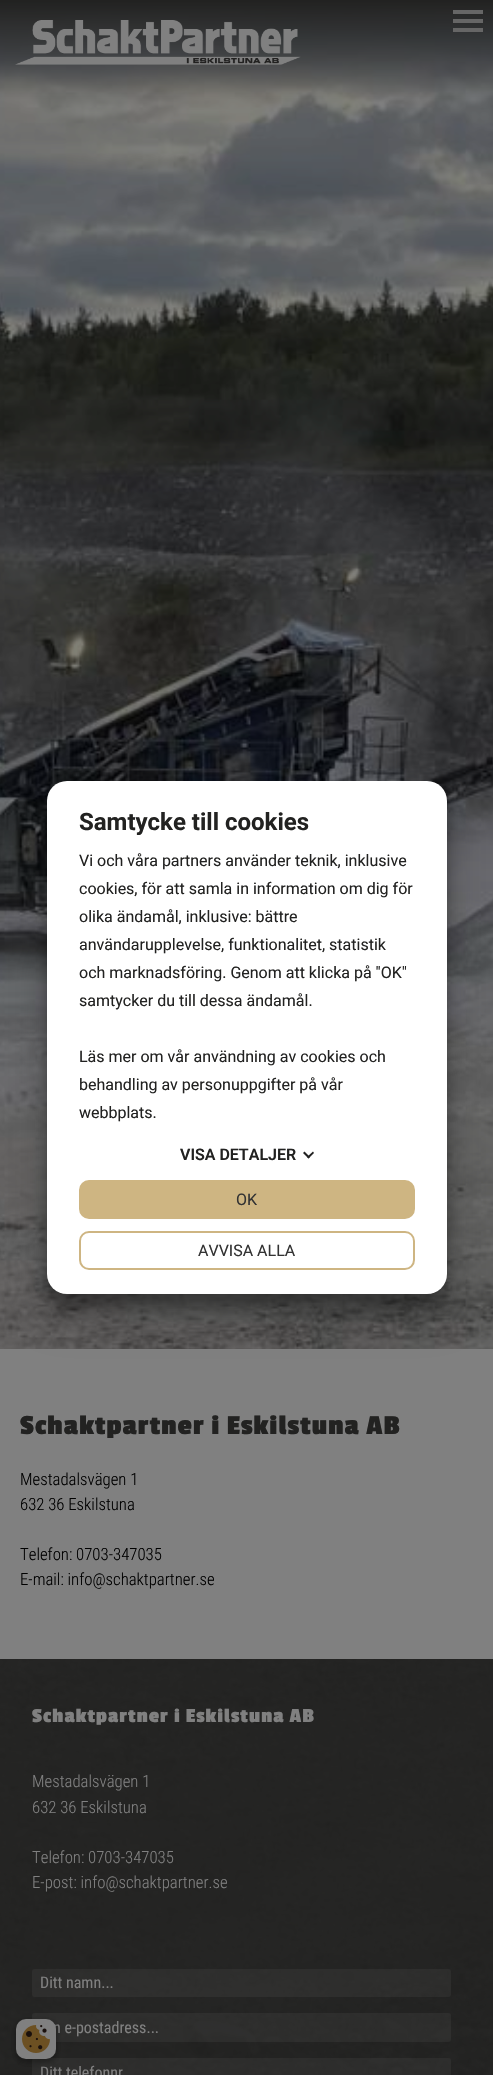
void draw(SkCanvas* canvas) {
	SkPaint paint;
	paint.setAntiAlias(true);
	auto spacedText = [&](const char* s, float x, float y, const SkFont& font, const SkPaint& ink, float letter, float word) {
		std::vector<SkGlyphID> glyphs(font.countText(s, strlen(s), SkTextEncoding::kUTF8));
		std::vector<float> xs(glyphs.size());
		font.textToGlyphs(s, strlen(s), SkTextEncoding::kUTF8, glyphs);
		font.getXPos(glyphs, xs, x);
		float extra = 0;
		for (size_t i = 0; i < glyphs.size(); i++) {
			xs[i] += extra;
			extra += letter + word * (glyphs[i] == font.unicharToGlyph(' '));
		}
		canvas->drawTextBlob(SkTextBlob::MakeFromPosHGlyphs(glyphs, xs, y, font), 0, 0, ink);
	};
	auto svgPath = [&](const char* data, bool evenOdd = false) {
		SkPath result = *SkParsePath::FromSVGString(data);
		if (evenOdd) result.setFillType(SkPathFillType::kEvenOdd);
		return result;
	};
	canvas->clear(0xffffffff);
	canvas->drawImageRect(SkImages::DeferredFromEncodedData(SkData::MakeFromFileName("img2.png")), SkRect::MakeXYWH(0, 0, 493, 2075), SkSamplingOptions());
	canvas->drawImageRect(SkImages::DeferredFromEncodedData(SkData::MakeFromFileName("img1.png")), SkRect::MakeXYWH(15, 20, 286, 45), SkSamplingOptions());
	paint.setColor(0xff666666);
	canvas->drawRect(SkRect::MakeXYWH(453, 10, 30, 4), paint);
	canvas->drawRect(SkRect::MakeXYWH(453, 19, 30, 4), paint);
	canvas->drawRect(SkRect::MakeXYWH(453, 28, 30, 4), paint);
	paint.setColor(0x38000000);
	paint.setMaskFilter(SkMaskFilter::MakeBlur(kNormal_SkBlurStyle, 6));
	canvas->drawRoundRect(SkRect::MakeXYWH(47, 796, 400, 513), 20, 20, paint);
	paint.setMaskFilter(nullptr);
	paint.setColor(0xff808080);
	canvas->drawRect(SkRect::MakeXYWH(0, 1349, 493, 310), paint);
	paint.setColor(0x4d000000);
	paint.setMaskFilter(SkMaskFilter::MakeBlur(kNormal_SkBlurStyle, 19));
	canvas->drawRoundRect(SkRect::MakeXYWH(47, 800, 400, 513), 20, 20, paint);
	paint.setMaskFilter(nullptr);
	paint.setColor(0xffffffff);
	canvas->drawRoundRect(SkRect::MakeXYWH(47, 781, 400, 513), 20, 20, paint);
	SkFont f1(fontMgr->matchFamilyStyle("Roboto", SkFontStyle::Bold()), 24);
	f1.setSubpixel(true);
	paint.setColor(0xff222221);
	canvas->drawString("Samtycke till cookies", 79, 830, f1, paint);
	SkFont f2(fontMgr->matchFamilyStyle("Roboto", SkFontStyle::Normal()), 16);
	f2.setSubpixel(true);
	canvas->drawString("Vi och våra partners använder teknik, inklusive", 79, 866, f2, paint);
	canvas->drawString("cookies, för att samla in information om dig för", 79, 894, f2, paint);
	canvas->drawString("olika ändamål, inklusive: bättre", 79, 922, f2, paint);
	canvas->drawString("användarupplevelse, funktionalitet, statistik", 79, 950, f2, paint);
	canvas->drawString("och marknadsföring. Genom att klicka på \"OK\"", 79, 978, f2, paint);
	canvas->drawString("samtycker du till dessa ändamål.", 79, 1006, f2, paint);
	canvas->drawString("Läs mer om vår användning av cookies och", 79, 1062, f2, paint);
	canvas->drawString("behandling av personuppgifter på vår", 79, 1090, f2, paint);
	canvas->drawString("webbplats.", 79, 1118, f2, paint);
	SkFont f3(fontMgr->matchFamilyStyle("Roboto", SkFontStyle(600, SkFontStyle::kNormal_Width, SkFontStyle::kUpright_Slant)), 16);
	f3.setSubpixel(true);
	canvas->drawString("VISA DETALJER", 180, 1160, f3, paint);
	paint.setColor(0xff212121);
	canvas->drawPath(svgPath("M313 1151.5L314 1153L308.5 1158.5L307 1157Z"), paint);
	canvas->drawPath(svgPath("M304.5 1151.5L310 1157L308.5 1158.5L303 1153Z"), paint);
	paint.setColor(0xffceb582);
	canvas->drawRoundRect(SkRect::MakeXYWH(80, 1181, 334, 37), 9, 9, paint);
	paint.setStroke(true);
	paint.setStrokeWidth(2);
	canvas->drawRoundRect(SkRect::MakeXYWH(80, 1181, 334, 37), 9, 9, paint);
	paint.setStroke(false);
	paint.setColor(0xff333333);
	canvas->drawString("OK", 236, 1205, f2, paint);
	paint.setStroke(true);
	paint.setColor(0xffceb582);
	canvas->drawRoundRect(SkRect::MakeXYWH(80, 1232, 334, 37), 9, 9, paint);
	paint.setStroke(false);
	paint.setColor(0xff333333);
	canvas->drawString("AVVISA ALLA", 198, 1256, f2, paint);
	SkFont f4(fontMgr->matchFamilyStyle("Passion One", SkFontStyle::Bold()), 28.75);
	f4.setSubpixel(true);
	paint.setColor(0xff222221);
	spacedText("Schaktpartner i Eskilstuna AB", 20, 1434, f4, paint, 1, 0);
	SkFont f5(fontMgr->matchFamilyStyle("Roboto Condensed", SkFontStyle(300, SkFontStyle::kNormal_Width, SkFontStyle::kUpright_Slant)), 16.75);
	f5.setSubpixel(true);
	paint.setColor(0xff000000);
	canvas->drawString("Mestadalsvägen 1", 20, 1485, f5, paint);
	canvas->drawString("632 36 Eskilstuna", 20, 1510, f5, paint);
	canvas->drawString("Telefon: 0703-347035", 20, 1560, f5, paint);
	canvas->drawString("E-mail: info@schaktpartner.se", 20, 1585, f5, paint);
	paint.setColor(0xf2222221);
	canvas->drawRect(SkRect::MakeXYWH(0, 1659, 493, 416), paint);
	SkFont f6(fontMgr->matchFamilyStyle("Passion One", SkFontStyle::Bold()), 20.75);
	f6.setSubpixel(true);
	paint.setColor(0xff808080);
	spacedText("Schaktpartner i Eskilstuna AB", 32, 1722, f6, paint, 1, 0);
	canvas->drawString("Mestadalsvägen 1", 32, 1787, f5, paint);
	canvas->drawString("632 36 Eskilstuna", 32, 1813, f5, paint);
	canvas->drawString("Telefon: 0703-347035", 32, 1863, f5, paint);
	canvas->drawString("E-post: info@schaktpartner.se", 32, 1888, f5, paint);
	paint.setColor(0x1a808080);
	canvas->drawRoundRect(SkRect::MakeXYWH(32, 1969, 419, 28), 3, 3, paint);
	SkFont f7(fontMgr->matchFamilyStyle("Roboto Condensed", SkFontStyle::Normal()), 16);
	f7.setSubpixel(true);
	paint.setColor(0xff808080);
	canvas->drawString("Ditt namn...", 40, 1988, f7, paint);
	paint.setColor(0x1a808080);
	canvas->drawRoundRect(SkRect::MakeXYWH(32, 2013, 419, 29), 3, 3, paint);
	paint.setColor(0xff808080);
	canvas->drawString("n e-postadress...", 53, 2033, f7, paint);
	paint.setColor(0x1a808080);
	canvas->drawRoundRect(SkRect::MakeXYWH(32, 2058, 419, 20), 3, 3, paint);
	paint.setColor(0xff808080);
	canvas->drawString("Ditt telefonnr", 40, 2078, f7, paint);
	paint.setColor(0x3b000000);
	paint.setMaskFilter(SkMaskFilter::MakeBlur(kNormal_SkBlurStyle, 3));
	canvas->drawRoundRect(SkRect::MakeXYWH(16, 2022, 40, 40), 10, 10, paint);
	paint.setMaskFilter(nullptr);
	paint.setColor(0x29000000);
	paint.setMaskFilter(SkMaskFilter::MakeBlur(kNormal_SkBlurStyle, 3));
	canvas->drawRoundRect(SkRect::MakeXYWH(16, 2022, 40, 40), 10, 10, paint);
	paint.setMaskFilter(nullptr);
	paint.setColor(0xff808080);
	canvas->drawRoundRect(SkRect::MakeXYWH(16, 2019, 40, 40), 10, 10, paint);
	canvas->drawImageRect(SkImages::DeferredFromEncodedData(SkData::MakeFromFileName("img3.png")), SkRect::MakeXYWH(22, 2025, 28, 28), SkSamplingOptions());
}
